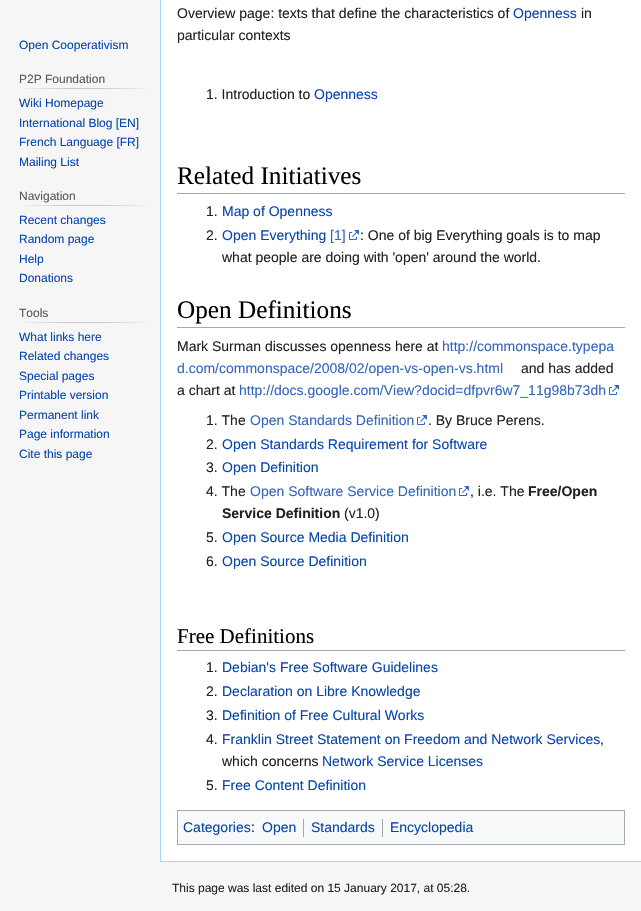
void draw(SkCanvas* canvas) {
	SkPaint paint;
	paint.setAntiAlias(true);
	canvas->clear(0xfff6f6f6);
	SkFont f1(fontMgr->matchFamilyStyle("Liberation Sans", SkFontStyle::Normal()), 12);
	f1.setSubpixel(true);
	paint.setColor(0xff0645ad);
	canvas->drawString("Open Cooperativism", 19, 49, f1, paint);
	{
		const SkColor colors[] = {0xfff6f6f6, 0xffc8ccd1, 0xffc8ccd1, 0xfff6f6f6};
		const float stops[] = {0, 0.33, 0.66, 1};
		const SkPoint ends[] = {{19, 89}, {150, 89}};
		paint.setShader(SkGradientShader::MakeLinear(ends, colors, stops, 4, SkTileMode::kClamp));
		paint.setAlpha(255);
	}
	canvas->drawRect(SkRect::MakeXYWH(19, 88, 131, 1), paint);
	paint.setShader(nullptr);
	paint.setColor(0xff54595d);
	canvas->drawString("P2P Foundation", 19, 83, f1, paint);
	paint.setColor(0xff0645ad);
	canvas->drawString("Wiki Homepage", 19, 107, f1, paint);
	canvas->drawString("International Blog [EN]", 19, 127, f1, paint);
	canvas->drawString("French Language [FR]", 19, 146, f1, paint);
	canvas->drawString("Mailing List", 19, 166, f1, paint);
	{
		const SkColor colors[] = {0xfff6f6f6, 0xffc8ccd1, 0xffc8ccd1, 0xfff6f6f6};
		const float stops[] = {0, 0.33, 0.66, 1};
		const SkPoint ends[] = {{19, 206}, {150, 206}};
		paint.setShader(SkGradientShader::MakeLinear(ends, colors, stops, 4, SkTileMode::kClamp));
		paint.setAlpha(255);
	}
	canvas->drawRect(SkRect::MakeXYWH(19, 205, 131, 1), paint);
	paint.setShader(nullptr);
	paint.setColor(0xff54595d);
	canvas->drawString("Navigation", 19, 200, f1, paint);
	paint.setColor(0xff0645ad);
	canvas->drawString("Recent changes", 19, 224, f1, paint);
	canvas->drawString("Random page", 19, 243, f1, paint);
	canvas->drawString("Help", 19, 263, f1, paint);
	canvas->drawString("Donations", 19, 282, f1, paint);
	{
		const SkColor colors[] = {0xfff6f6f6, 0xffc8ccd1, 0xffc8ccd1, 0xfff6f6f6};
		const float stops[] = {0, 0.33, 0.66, 1};
		const SkPoint ends[] = {{19, 323}, {150, 323}};
		paint.setShader(SkGradientShader::MakeLinear(ends, colors, stops, 4, SkTileMode::kClamp));
		paint.setAlpha(255);
	}
	canvas->drawRect(SkRect::MakeXYWH(19, 322, 131, 1), paint);
	paint.setShader(nullptr);
	paint.setColor(0xff54595d);
	canvas->drawString("Tools", 19, 317, f1, paint);
	paint.setColor(0xff0645ad);
	canvas->drawString("What links here", 19, 341, f1, paint);
	canvas->drawString("Related changes", 19, 360, f1, paint);
	canvas->drawString("Special pages", 19, 380, f1, paint);
	canvas->drawString("Printable version", 19, 399, f1, paint);
	canvas->drawString("Permanent link", 19, 419, f1, paint);
	canvas->drawString("Page information", 19, 438, f1, paint);
	canvas->drawString("Cite this page", 19, 458, f1, paint);
	paint.setColor(0xffffffff);
	canvas->drawRect(SkRect::MakeXYWH(161, 0, 480, 861), paint);
	paint.setColor(0xffa7d7f9);
	canvas->drawRect(SkRect::MakeXYWH(160, 861, 481, 1), paint);
	canvas->drawRect(SkRect::MakeXYWH(160, 0, 1, 862), paint);
	SkFont f2(fontMgr->matchFamilyStyle("Liberation Sans", SkFontStyle::Normal()), 14);
	f2.setSubpixel(true);
	paint.setColor(0xff202122);
	canvas->drawString("Overview page: texts that define the characteristics of", 177, 18, f2, paint);
	paint.setColor(0xff0645ad);
	canvas->drawString("Openness", 513, 18, f2, paint);
	paint.setColor(0xff202122);
	canvas->drawString("in", 581, 18, f2, paint);
	canvas->drawString("particular contexts", 177, 40, f2, paint);
	canvas->drawString("1. Introduction to", 206, 99, f2, paint);
	paint.setColor(0xff0645ad);
	canvas->drawString("Openness", 314, 99, f2, paint);
	paint.setColor(0xffa2a9b1);
	canvas->drawRect(SkRect::MakeXYWH(177, 193, 448, 1), paint);
	SkFont f3(fontMgr->matchFamilyStyle("Liberation Serif", SkFontStyle::Normal()), 25.25);
	f3.setSubpixel(true);
	paint.setColor(0xff000000);
	canvas->drawString("Related Initiatives", 177, 184, f3, paint);
	paint.setColor(0xff202122);
	canvas->drawString("1.", 206, 216, f2, paint);
	paint.setColor(0xff0645ad);
	canvas->drawString("Map of Openness", 222, 216, f2, paint);
	paint.setColor(0xff202122);
	canvas->drawString("2.", 206, 240, f2, paint);
	paint.setColor(0xff0645ad);
	canvas->drawString("Open Everything", 222, 240, f2, paint);
	paint.setColor(0xff3366bb);
	canvas->drawString("[1]", 330, 240, f2, paint);
	canvas->drawImageRect(SkImages::DeferredFromEncodedData(SkData::MakeFromFileName("img1.png")), SkRect::MakeXYWH(349, 230, 10, 10), SkSamplingOptions());
	paint.setColor(0xff202122);
	canvas->drawString(": One of big Everything goals is to map", 360, 240, f2, paint);
	canvas->drawString("what people are doing with 'open' around the world.", 222, 262, f2, paint);
	paint.setColor(0xffa2a9b1);
	canvas->drawRect(SkRect::MakeXYWH(177, 327, 448, 1), paint);
	paint.setColor(0xff000000);
	canvas->drawString("Open Definitions", 177, 318, f3, paint);
	paint.setColor(0xff202122);
	canvas->drawString("Mark Surman discusses openness here at", 177, 351, f2, paint);
	paint.setColor(0xff3366bb);
	canvas->drawString("http://commonspace.typepa", 442, 351, f2, paint);
	canvas->drawString("d.com/commonspace/2008/02/open-vs-open-vs.html", 177, 373, f2, paint);
	paint.setColor(0xff202122);
	canvas->drawString("and has added", 521, 373, f2, paint);
	canvas->drawString("a chart at", 177, 395, f2, paint);
	paint.setColor(0xff3366bb);
	canvas->drawString("http://docs.google.com/View?docid=dfpvr6w7_11g98b73dh", 239, 395, f2, paint);
	canvas->drawImageRect(SkImages::DeferredFromEncodedData(SkData::MakeFromFileName("img1.png")), SkRect::MakeXYWH(609, 385, 10, 10), SkSamplingOptions());
	paint.setColor(0xff202122);
	canvas->drawString("1. The", 206, 425, f2, paint);
	paint.setColor(0xff3366bb);
	canvas->drawString("Open Standards Definition", 250, 425, f2, paint);
	canvas->drawImageRect(SkImages::DeferredFromEncodedData(SkData::MakeFromFileName("img1.png")), SkRect::MakeXYWH(417, 415, 10, 10), SkSamplingOptions());
	paint.setColor(0xff202122);
	canvas->drawString(". By Bruce Perens.", 428, 425, f2, paint);
	canvas->drawString("2.", 206, 449, f2, paint);
	paint.setColor(0xff0645ad);
	canvas->drawString("Open Standards Requirement for Software", 222, 449, f2, paint);
	paint.setColor(0xff202122);
	canvas->drawString("3.", 206, 472, f2, paint);
	paint.setColor(0xff0645ad);
	canvas->drawString("Open Definition", 222, 472, f2, paint);
	paint.setColor(0xff202122);
	canvas->drawString("4. The", 206, 496, f2, paint);
	paint.setColor(0xff3366bb);
	canvas->drawString("Open Software Service Definition", 250, 496, f2, paint);
	canvas->drawImageRect(SkImages::DeferredFromEncodedData(SkData::MakeFromFileName("img1.png")), SkRect::MakeXYWH(459, 486, 10, 10), SkSamplingOptions());
	paint.setColor(0xff202122);
	canvas->drawString(", i.e. The", 470, 496, f2, paint);
	SkFont f4(fontMgr->matchFamilyStyle("Liberation Sans", SkFontStyle::Bold()), 14);
	f4.setSubpixel(true);
	canvas->drawString("Free/Open", 528, 496, f4, paint);
	canvas->drawString("Service Definition", 222, 518, f4, paint);
	canvas->drawString("(v1.0)", 344, 518, f2, paint);
	canvas->drawString("5.", 206, 542, f2, paint);
	paint.setColor(0xff0645ad);
	canvas->drawString("Open Source Media Definition", 222, 542, f2, paint);
	paint.setColor(0xff202122);
	canvas->drawString("6.", 206, 566, f2, paint);
	paint.setColor(0xff0645ad);
	canvas->drawString("Open Source Definition", 222, 566, f2, paint);
	paint.setColor(0xffa2a9b1);
	canvas->drawRect(SkRect::MakeXYWH(177, 650, 448, 1), paint);
	SkFont f5(fontMgr->matchFamilyStyle("Liberation Serif", SkFontStyle::Normal()), 21);
	f5.setSubpixel(true);
	paint.setColor(0xff000000);
	canvas->drawString("Free Definitions", 177, 643, f5, paint);
	paint.setColor(0xff202122);
	canvas->drawString("1.", 206, 672, f2, paint);
	paint.setColor(0xff0645ad);
	canvas->drawString("Debian's Free Software Guidelines", 222, 672, f2, paint);
	paint.setColor(0xff202122);
	canvas->drawString("2.", 206, 696, f2, paint);
	paint.setColor(0xff0645ad);
	canvas->drawString("Declaration on Libre Knowledge", 222, 696, f2, paint);
	paint.setColor(0xff202122);
	canvas->drawString("3.", 206, 720, f2, paint);
	paint.setColor(0xff0645ad);
	canvas->drawString("Definition of Free Cultural Works", 222, 720, f2, paint);
	paint.setColor(0xff202122);
	canvas->drawString("4.", 206, 744, f2, paint);
	paint.setColor(0xff0645ad);
	canvas->drawString("Franklin Street Statement on Freedom and Network Services", 222, 744, f2, paint);
	paint.setColor(0xff202122);
	canvas->drawString(",", 600, 744, f2, paint);
	canvas->drawString("which concerns", 222, 766, f2, paint);
	paint.setColor(0xff0645ad);
	canvas->drawString("Network Service Licenses", 322, 766, f2, paint);
	paint.setColor(0xff202122);
	canvas->drawString("5.", 206, 790, f2, paint);
	paint.setColor(0xff0645ad);
	canvas->drawString("Free Content Definition", 222, 790, f2, paint);
	paint.setColor(0xfff8f9fa);
	canvas->drawRect(SkRect::MakeXYWH(177.5, 810.5, 447, 34), paint);
	paint.setStroke(true);
	paint.setStrokeWidth(1);
	paint.setColor(0xffa2a9b1);
	canvas->drawRect(SkRect::MakeXYWH(177.5, 810.5, 447, 34), paint);
	paint.setStroke(false);
	paint.setColor(0xff0645ad);
	canvas->drawString("Categories", 183, 832, f2, paint);
	paint.setColor(0xff202122);
	canvas->drawString(":", 251, 832, f2, paint);
	paint.setColor(0xff0645ad);
	canvas->drawString("Open", 262, 832, f2, paint);
	paint.setColor(0xffa2a9b1);
	canvas->drawRect(SkRect::MakeXYWH(303, 819, 1, 18), paint);
	paint.setColor(0xff0645ad);
	canvas->drawString("Standards", 311, 832, f2, paint);
	paint.setColor(0xffa2a9b1);
	canvas->drawRect(SkRect::MakeXYWH(382, 819, 1, 18), paint);
	paint.setColor(0xff0645ad);
	canvas->drawString("Encyclopedia", 390, 832, f2, paint);
	paint.setColor(0xff202122);
	canvas->drawString("This page was last edited on 15 January 2017, at 05:28.", 172, 892, f1, paint);
}
